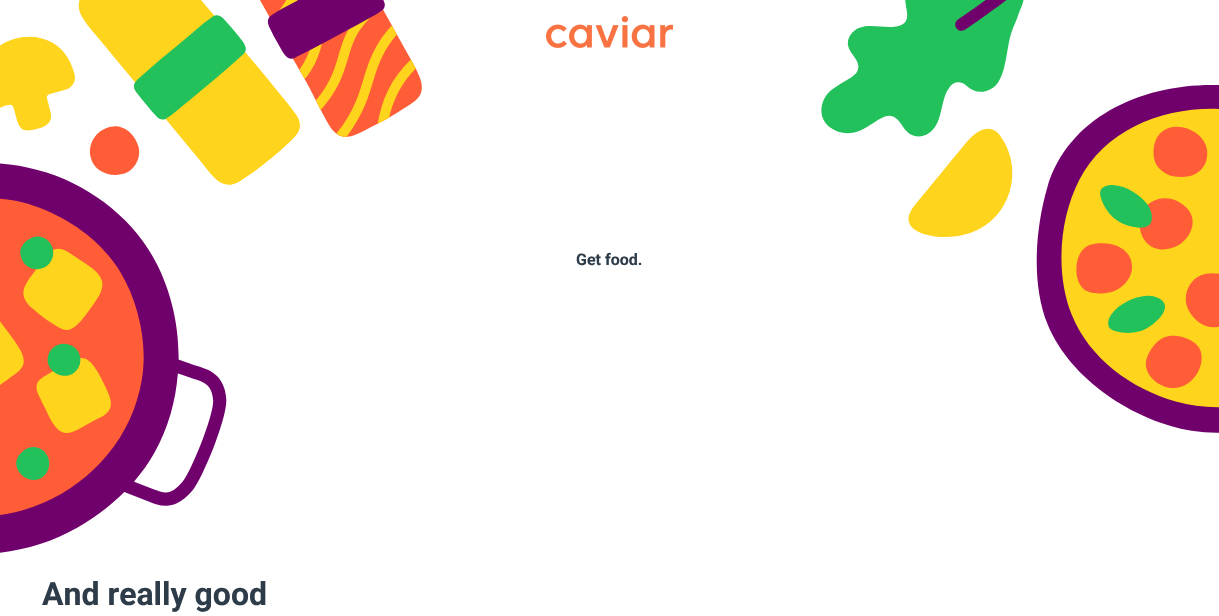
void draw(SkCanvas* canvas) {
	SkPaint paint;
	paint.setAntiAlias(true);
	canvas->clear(0xffffffff);
	canvas->drawImageRect(SkImages::DeferredFromEncodedData(SkData::MakeFromFileName("img1.png")), SkRect::MakeXYWH(0, 0, 1219, 553), SkSamplingOptions());
	canvas->drawImageRect(SkImages::DeferredFromEncodedData(SkData::MakeFromFileName("img2.png")), SkRect::MakeXYWH(546, 16, 127, 32), SkSamplingOptions());
	SkFont f1(fontMgr->matchFamilyStyle("Roboto", SkFontStyle::Bold()), 16);
	f1.setSubpixel(true);
	paint.setColor(0xff2d3c48);
	canvas->drawString("Get food.", 576, 265, f1, paint);
	SkFont f2(fontMgr->matchFamilyStyle("Roboto", SkFontStyle::Bold()), 32);
	f2.setSubpixel(true);
	canvas->drawString("And really good", 42, 605, f2, paint);
}
